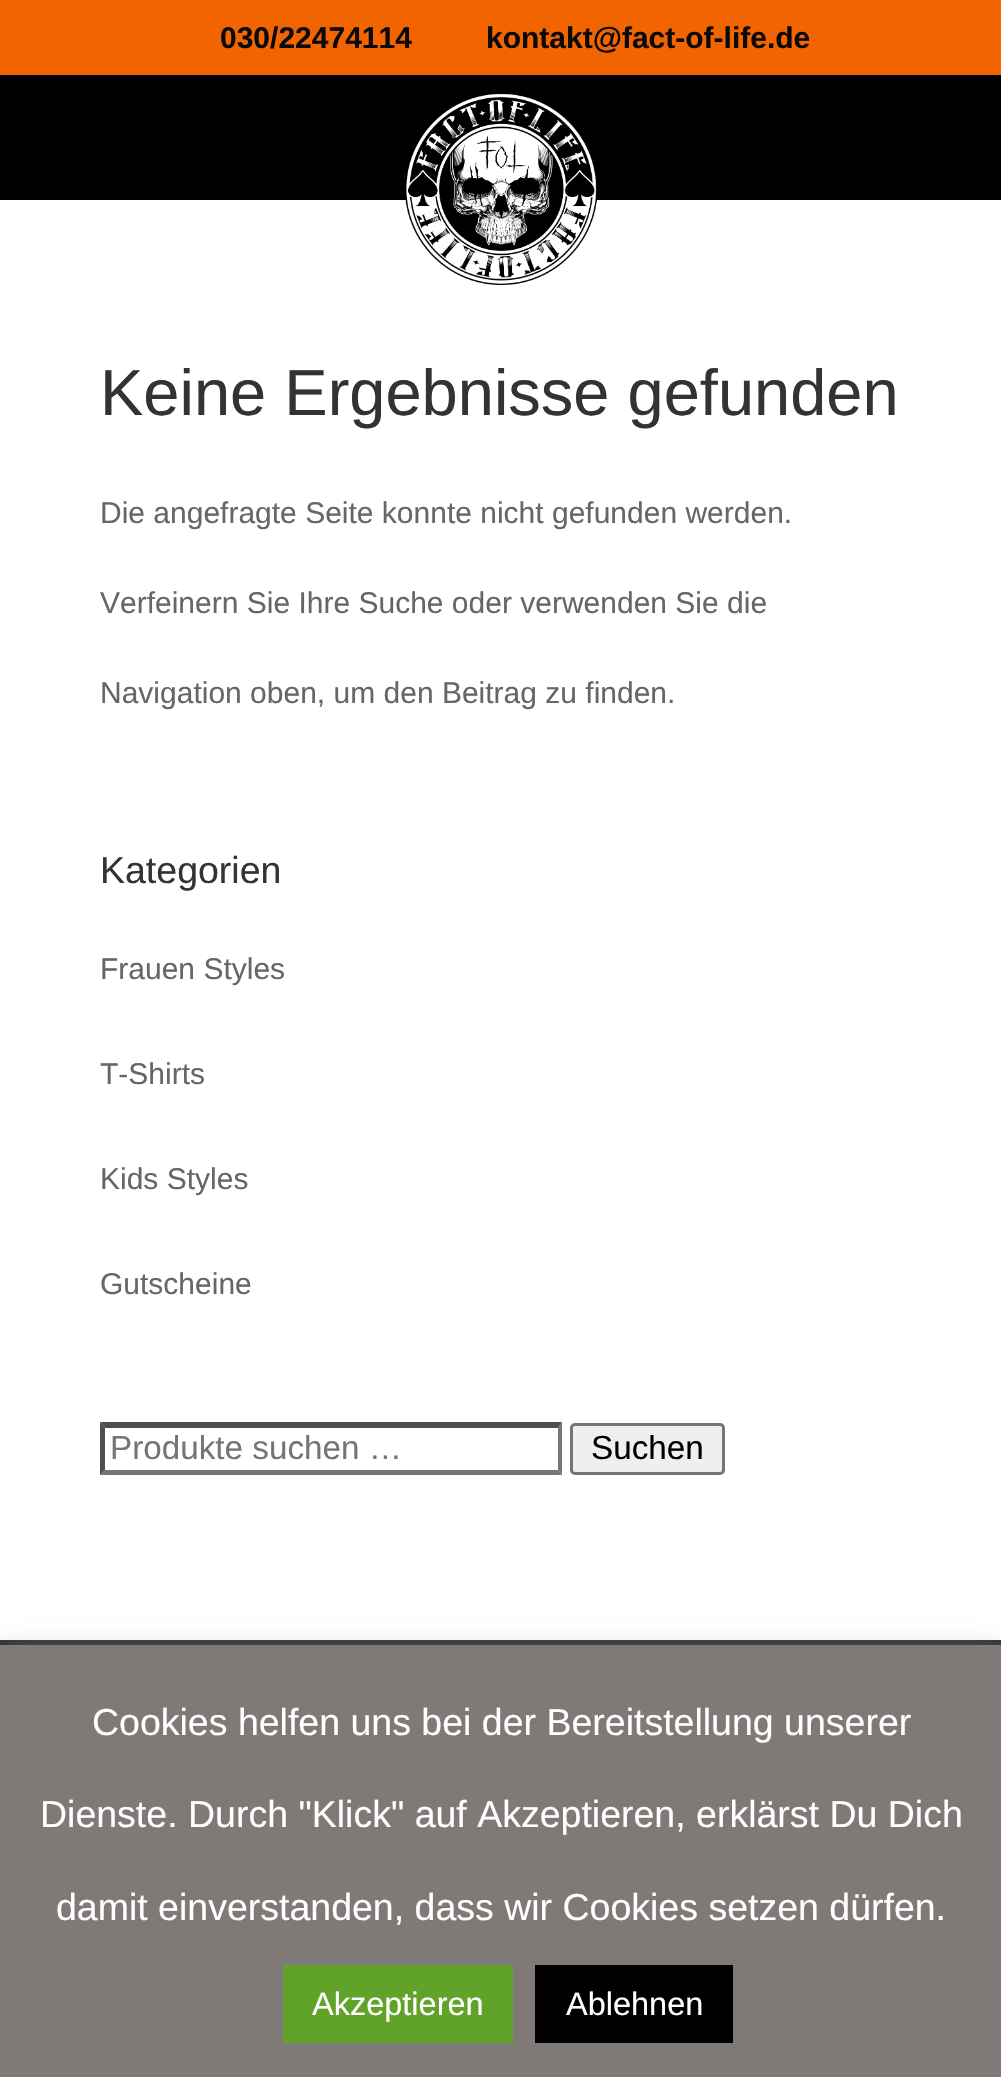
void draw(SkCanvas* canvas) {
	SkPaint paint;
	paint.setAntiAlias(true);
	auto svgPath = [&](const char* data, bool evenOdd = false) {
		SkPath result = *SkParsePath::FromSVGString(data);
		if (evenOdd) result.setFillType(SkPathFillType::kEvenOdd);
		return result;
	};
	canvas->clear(0xffffffff);
	paint.setColor(0xfff26400);
	canvas->drawRect(SkRect::MakeXYWH(0, 0, 1001, 75), paint);
	SkFont f1(fontMgr->matchFamilyStyle("Liberation Sans", SkFontStyle::Bold()), 30);
	f1.setSubpixel(true);
	paint.setColor(0xff0a0a0a);
	canvas->drawString("030/22474114", 220, 48, f1, paint);
	canvas->drawString("kontakt@fact-of-life.de", 486, 48, f1, paint);
	SkFont f2(fontMgr->matchFamilyStyle("Liberation Sans", SkFontStyle::Normal()), 65);
	f2.setSubpixel(true);
	paint.setColor(0xff333333);
	canvas->drawString("Keine Ergebnisse gefunden", 100, 415, f2, paint);
	SkFont f3(fontMgr->matchFamilyStyle("Liberation Sans", SkFontStyle::Normal()), 30);
	f3.setSubpixel(true);
	paint.setColor(0xff666666);
	canvas->drawString("Die angefragte Seite konnte nicht gefunden werden.", 100, 523, f3, paint);
	canvas->drawString("Verfeinern Sie Ihre Suche oder verwenden Sie die", 100, 613, f3, paint);
	canvas->drawString("Navigation oben, um den Beitrag zu finden.", 100, 703, f3, paint);
	SkFont f4(fontMgr->matchFamilyStyle("Liberation Sans", SkFontStyle::Normal()), 37.5);
	f4.setSubpixel(true);
	paint.setColor(0xff333333);
	canvas->drawString("Kategorien", 100, 883, f4, paint);
	paint.setColor(0xff666666);
	canvas->drawString("Frauen Styles", 100, 979, f3, paint);
	canvas->drawString("T-Shirts", 100, 1084, f3, paint);
	canvas->drawString("Kids Styles", 100, 1189, f3, paint);
	canvas->drawString("Gutscheine", 100, 1294, f3, paint);
	paint.setColor(0xff4f4f4f);
	canvas->drawPath(svgPath("M100 1422H562L558 1428H105Z"), paint);
	paint.setColor(0xff767676);
	canvas->drawPath(svgPath("M562 1422V1475L558 1470V1428Z"), paint);
	canvas->drawPath(svgPath("M562 1475H100L105 1470H558Z"), paint);
	paint.setColor(0xff4f4f4f);
	canvas->drawPath(svgPath("M100 1475V1422L105 1428V1470Z"), paint);
	SkFont f5(fontMgr->matchFamilyStyle("Liberation Sans", SkFontStyle::Normal()), 33.25);
	f5.setSubpixel(true);
	paint.setColor(0xff757575);
	canvas->drawString("Produkte suchen …", 110, 1459, f5, paint);
	paint.setColor(0xffefefef);
	canvas->drawRoundRect(SkRect::MakeXYWH(571.5, 1424.5, 152, 49), 3.5, 3.5, paint);
	paint.setStroke(true);
	paint.setStrokeWidth(3);
	paint.setColor(0xff767676);
	canvas->drawRoundRect(SkRect::MakeXYWH(571.5, 1424.5, 152, 49), 3.5, 3.5, paint);
	paint.setStroke(false);
	paint.setColor(0xff000000);
	canvas->drawString("Suchen", 591, 1459, f5, paint);
	paint.setColor(0xff2d2d2d);
	canvas->drawRect(SkRect::MakeXYWH(0, 1640, 1001, 5), paint);
	paint.setColor(0x4dacabab);
	paint.setMaskFilter(SkMaskFilter::MakeBlur(kNormal_SkBlurStyle, 12.5));
	canvas->drawRect(SkRect::MakeXYWH(0, 1643, 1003, 432), paint);
	paint.setMaskFilter(nullptr);
	paint.setColor(0xff7f7977);
	canvas->drawRect(SkRect::MakeXYWH(0, 1645, 1001, 432), paint);
	paint.setColor(0xffffffff);
	canvas->drawString("Cookies helfen uns bei der Bereitstellung unserer", 92, 1735, f4, paint);
	canvas->drawString("Dienste. Durch \"Klick\" auf Akzeptieren, erklärst Du Dich", 40, 1827, f4, paint);
	canvas->drawString("damit einverstanden, dass wir Cookies setzen dürfen.", 56, 1920, f4, paint);
	paint.setColor(0xff61a229);
	canvas->drawRect(SkRect::MakeXYWH(283, 1965, 230, 78), paint);
	SkFont f6(fontMgr->matchFamilyStyle("Liberation Sans", SkFontStyle::Normal()), 32.5);
	f6.setSubpixel(true);
	paint.setColor(0xffffffff);
	canvas->drawString("Akzeptieren", 312, 2015, f6, paint);
	paint.setColor(0xff000000);
	canvas->drawRect(SkRect::MakeXYWH(535, 1965, 198, 78), paint);
	paint.setColor(0xffffffff);
	canvas->drawString("Ablehnen", 566, 2015, f6, paint);
	paint.setColor(0xff000000);
	canvas->drawRect(SkRect::MakeXYWH(0, 75, 1001, 125), paint);
	canvas->drawImageRect(SkImages::DeferredFromEncodedData(SkData::MakeFromFileName("img1.png")), SkRect::MakeXYWH(405, 94, 192, 191), SkSamplingOptions());
}
